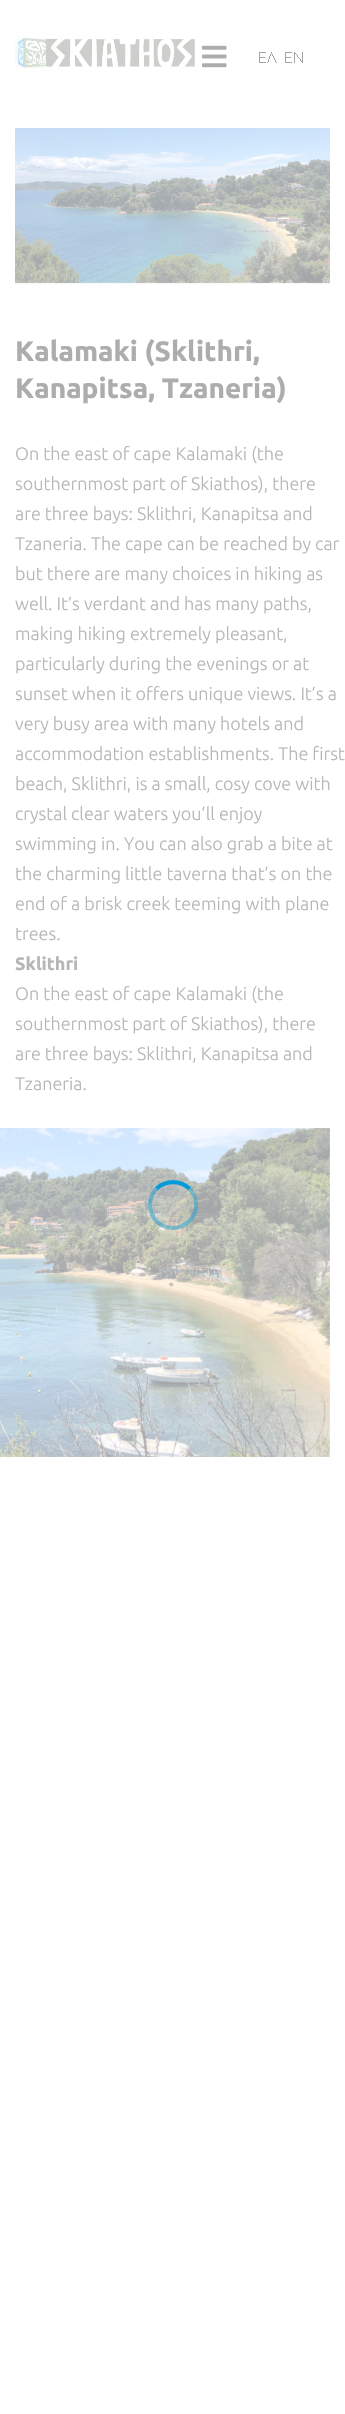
void draw(SkCanvas* canvas) {
	SkPaint paint;
	paint.setAntiAlias(true);
	auto svgPath = [&](const char* data, bool evenOdd = false) {
		SkPath result = *SkParsePath::FromSVGString(data);
		if (evenOdd) result.setFillType(SkPathFillType::kEvenOdd);
		return result;
	};
	canvas->clear(0xffffffff);
	canvas->drawImageRect(SkImages::DeferredFromEncodedData(SkData::MakeFromFileName("img1.png")), SkRect::MakeXYWH(15, 38, 180, 30), SkSamplingOptions());
	canvas->drawImageRect(SkImages::DeferredFromEncodedData(SkData::MakeFromFileName("img2.png")), SkRect::MakeXYWH(202, 45, 25, 23), SkSamplingOptions());
	canvas->drawImageRect(SkImages::DeferredFromEncodedData(SkData::MakeFromFileName("img3.png")), SkRect::MakeXYWH(259, 52, 18, 11), SkSamplingOptions());
	canvas->drawImageRect(SkImages::DeferredFromEncodedData(SkData::MakeFromFileName("img4.png")), SkRect::MakeXYWH(285, 52, 18, 11), SkSamplingOptions());
	canvas->drawImageRect(SkImages::DeferredFromEncodedData(SkData::MakeFromFileName("img5.png")), SkRect::MakeXYWH(15, 128, 315, 156), SkSamplingOptions());
	SkFont f1(fontMgr->matchFamilyStyle("Ubuntu", SkFontStyle::Bold()), 28);
	f1.setSubpixel(true);
	paint.setColor(0xffadadad);
	canvas->drawString("Kalamaki (Sklithri,", 15, 361, f1, paint);
	canvas->drawString("Kanapitsa, Tzaneria)", 15, 398, f1, paint);
	SkFont f2(fontMgr->matchFamilyStyle("Ubuntu", SkFontStyle(300, SkFontStyle::kNormal_Width, SkFontStyle::kUpright_Slant)), 18);
	f2.setSubpixel(true);
	paint.setColor(0xffb6b6b6);
	canvas->drawString("On the east of cape Kalamaki (the", 15, 460, f2, paint);
	canvas->drawString("southernmost part of Skiathos), there", 15, 490, f2, paint);
	canvas->drawString("are three bays: Sklithri, Kanapitsa and", 15, 520, f2, paint);
	canvas->drawString("Tzaneria. The cape can be reached by car", 15, 550, f2, paint);
	canvas->drawString("but there are many choices in hiking as", 15, 580, f2, paint);
	canvas->drawString("well. It’s verdant and has many paths,", 15, 610, f2, paint);
	canvas->drawString("making hiking extremely pleasant,", 15, 640, f2, paint);
	canvas->drawString("particularly during the evenings or at", 15, 670, f2, paint);
	canvas->drawString("sunset when it offers unique views. It’s a", 15, 700, f2, paint);
	canvas->drawString("very busy area with many hotels and", 15, 730, f2, paint);
	canvas->drawString("accommodation establishments. The first", 15, 760, f2, paint);
	canvas->drawString("beach, Sklithri, is a small, cosy cove with", 15, 790, f2, paint);
	canvas->drawString("crystal clear waters you’ll enjoy", 15, 820, f2, paint);
	canvas->drawString("swimming in. You can also grab a bite at", 15, 850, f2, paint);
	canvas->drawString("the charming little taverna that’s on the", 15, 880, f2, paint);
	canvas->drawString("end of a brisk creek teeming with plane", 15, 910, f2, paint);
	canvas->drawString("trees.", 15, 940, f2, paint);
	SkFont f3(fontMgr->matchFamilyStyle("Ubuntu", SkFontStyle::Bold()), 18);
	f3.setSubpixel(true);
	canvas->drawString("Sklithri", 15, 970, f3, paint);
	canvas->drawString("On the east of cape Kalamaki (the", 15, 1000, f2, paint);
	canvas->drawString("southernmost part of Skiathos), there", 15, 1030, f2, paint);
	canvas->drawString("are three bays: Sklithri, Kanapitsa and", 15, 1060, f2, paint);
	canvas->drawString("Tzaneria.", 15, 1090, f2, paint);
	canvas->drawImageRect(SkImages::DeferredFromEncodedData(SkData::MakeFromFileName("img6.png")), SkRect::MakeXYWH(0, 1128, 330, 329), SkSamplingOptions());
	paint.setStroke(true);
	paint.setStrokeWidth(4);
	paint.setColor(0x66019cd9);
	canvas->drawCircle(173, 1205, 23, paint);
	paint.setColor(0xff019cd9);
	canvas->drawPath(svgPath("M156.5 1188.5C165.5 1180 180.5 1180 189.5 1188.5"), paint);
}
